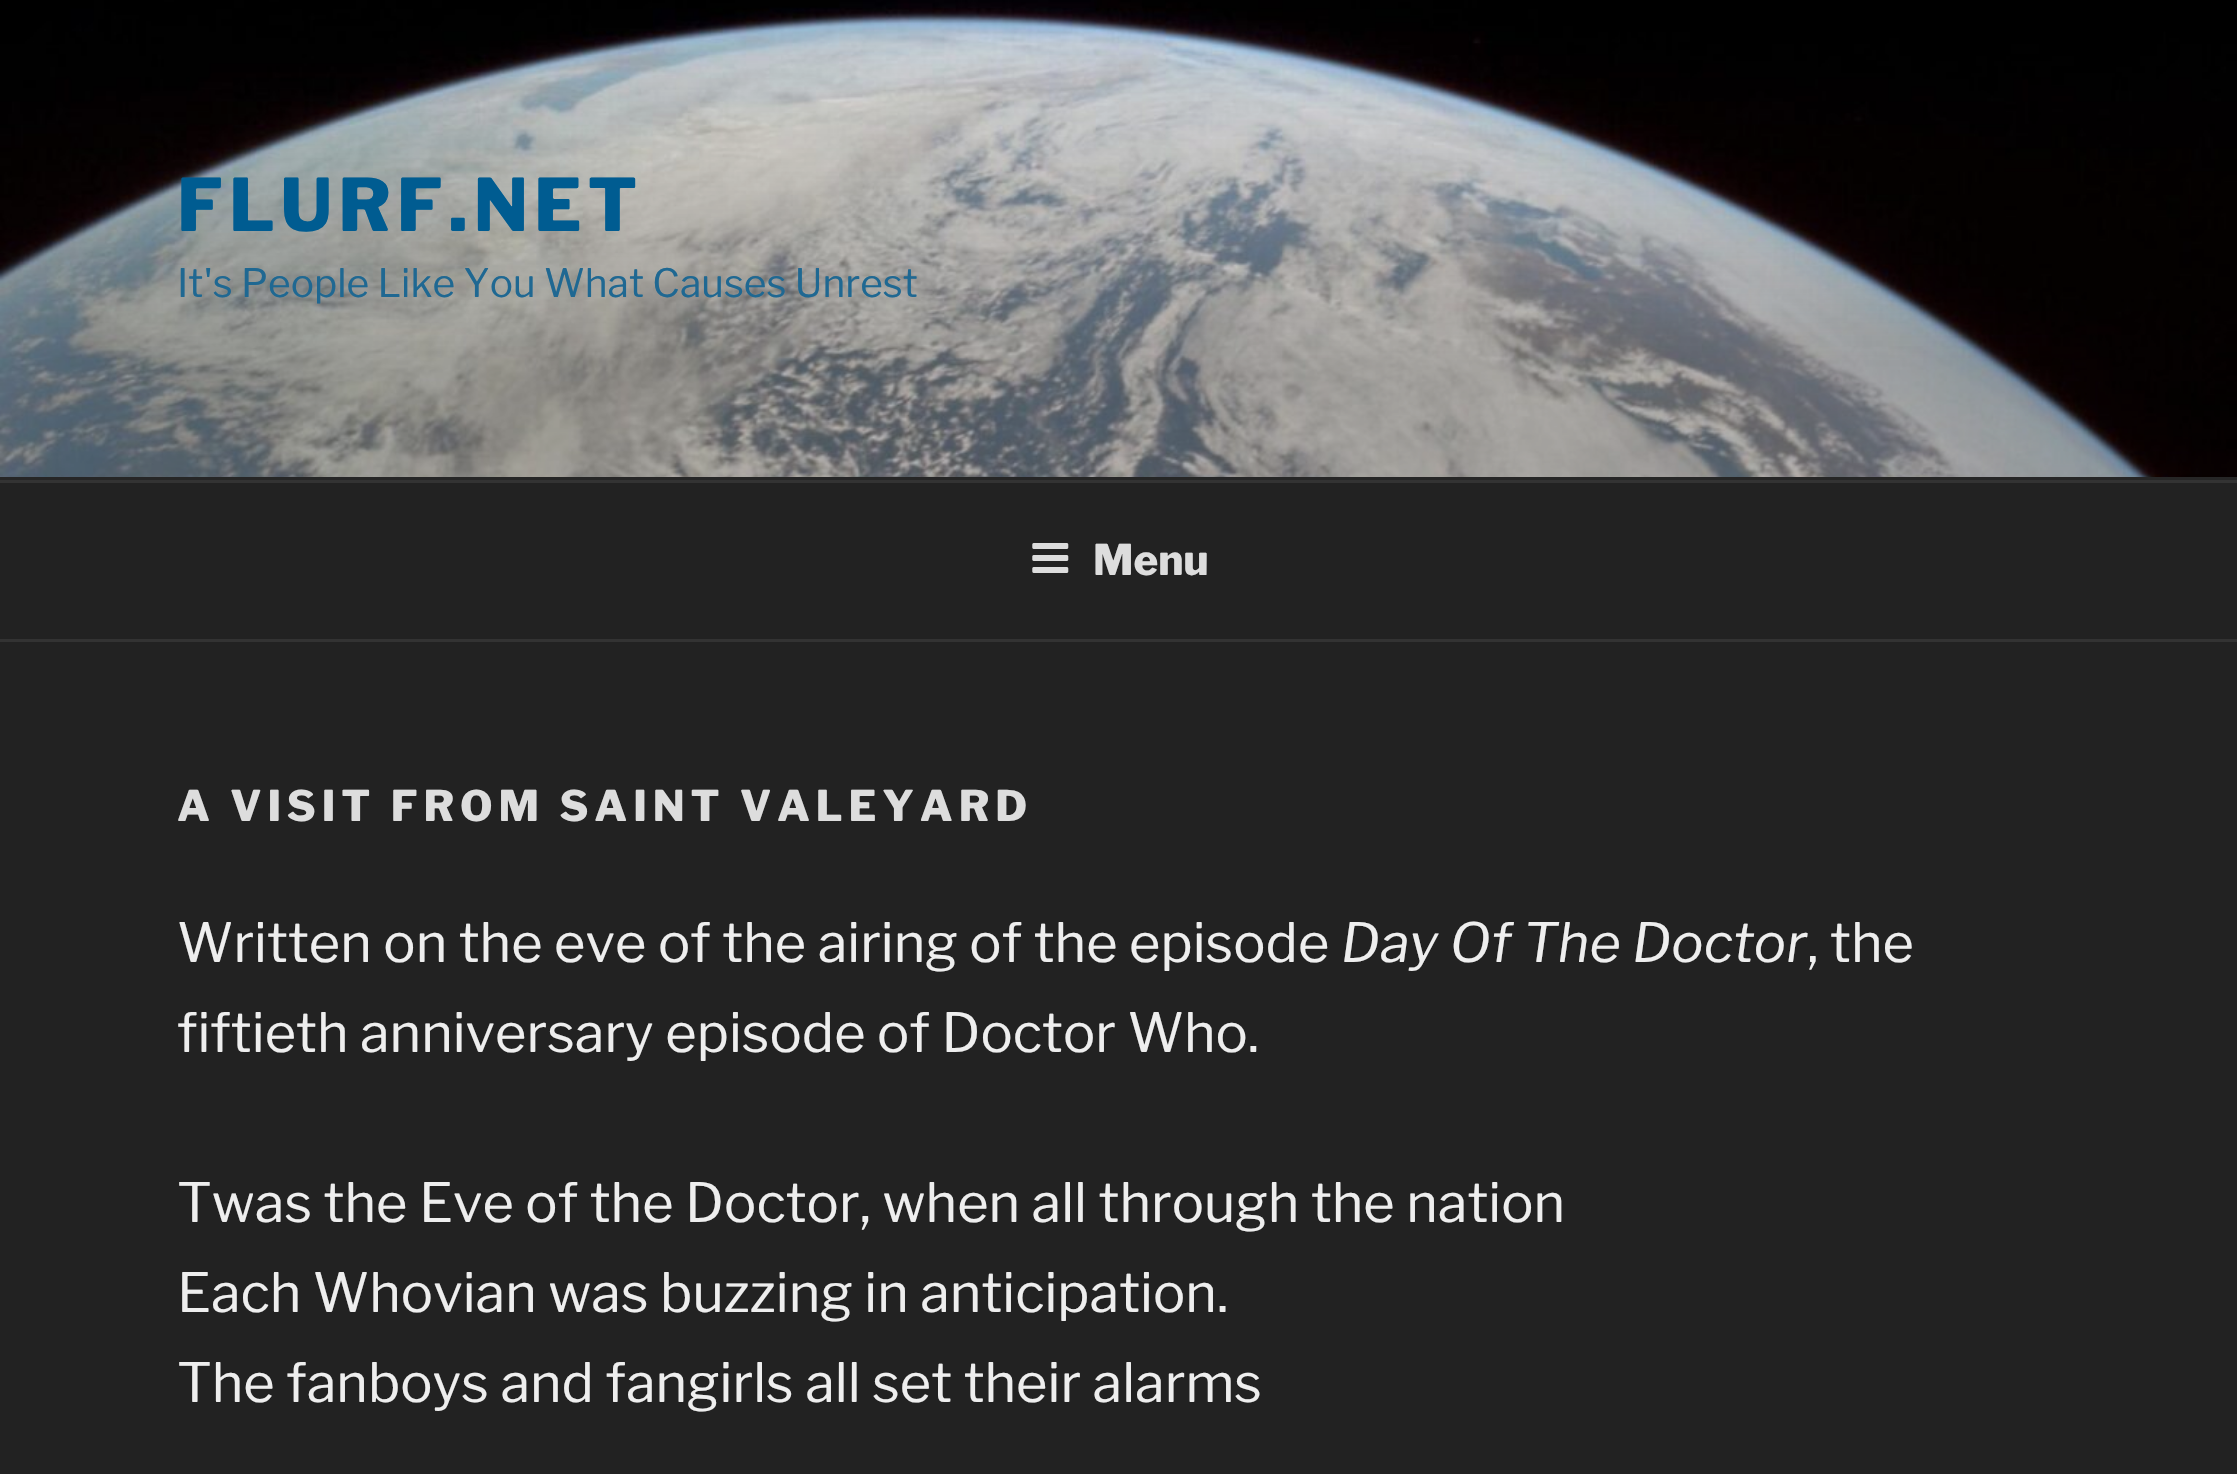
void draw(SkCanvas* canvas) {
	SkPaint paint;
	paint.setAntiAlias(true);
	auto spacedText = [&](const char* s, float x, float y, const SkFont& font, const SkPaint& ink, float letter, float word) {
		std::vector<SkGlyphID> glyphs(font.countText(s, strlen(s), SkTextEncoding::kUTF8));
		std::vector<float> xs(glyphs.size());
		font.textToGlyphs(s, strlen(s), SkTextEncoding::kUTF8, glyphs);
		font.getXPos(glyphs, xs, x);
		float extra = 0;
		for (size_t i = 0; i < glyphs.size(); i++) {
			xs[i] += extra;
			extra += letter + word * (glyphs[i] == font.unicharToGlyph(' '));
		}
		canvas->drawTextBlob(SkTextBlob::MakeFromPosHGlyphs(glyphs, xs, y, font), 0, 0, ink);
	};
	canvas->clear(0xff222222);
	paint.setColor(0xff262626);
	canvas->drawRect(SkRect::MakeXYWH(0, 477, 2237, 3), paint);
	canvas->drawImageRect(SkImages::DeferredFromEncodedData(SkData::MakeFromFileName("img1.png")), SkRect::MakeXYWH(0, 0, 2237, 477), SkSamplingOptions());
	SkFont f1(fontMgr->matchFamilyStyle("Libre Franklin", SkFontStyle(100, SkFontStyle::kNormal_Width, SkFontStyle::kUpright_Slant)), 72);
	f1.setSubpixel(true);
	paint.setColor(0xff005c91);
	spacedText("FLURF.NET", 177, 231, f1, paint, 5.75, 0);
	SkFont f2(fontMgr->matchFamilyStyle("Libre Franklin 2", SkFontStyle(100, SkFontStyle::kNormal_Width, SkFontStyle::kUpright_Slant)), 39);
	f2.setSubpixel(true);
	paint.setColor(0xff1f6892);
	canvas->drawString("It's People Like You What Causes Unrest", 177, 297, f2, paint);
	paint.setColor(0xff333333);
	canvas->drawRect(SkRect::MakeXYWH(0, 480, 2237, 3), paint);
	canvas->drawRect(SkRect::MakeXYWH(0, 639, 2237, 3), paint);
	canvas->drawImageRect(SkImages::DeferredFromEncodedData(SkData::MakeFromFileName("img2.png")), SkRect::MakeXYWH(1032, 543, 37, 30), SkSamplingOptions());
	SkFont f3(fontMgr->matchFamilyStyle("Libre Franklin", SkFontStyle(100, SkFontStyle::kNormal_Width, SkFontStyle::kUpright_Slant)), 42);
	f3.setSubpixel(true);
	paint.setColor(0xffdddddd);
	canvas->drawString("Menu", 1093, 575, f3, paint);
	spacedText("A VISIT FROM SAINT VALEYARD", 177, 821, f3, paint, 5.9, 0);
	SkFont f4(fontMgr->matchFamilyStyle("Libre Franklin 2", SkFontStyle(100, SkFontStyle::kNormal_Width, SkFontStyle::kUpright_Slant)), 54);
	f4.setSubpixel(true);
	paint.setColor(0xffeeeeee);
	canvas->drawString("Written on the eve of the airing of the episode", 177, 962, f4, paint);
	SkFont f5(fontMgr->matchFamilyStyle("Libre Franklin", SkFontStyle(100, SkFontStyle::kNormal_Width, SkFontStyle::kItalic_Slant)), 54);
	f5.setSubpixel(true);
	canvas->drawString("Day Of The Doctor", 1341, 962, f5, paint);
	canvas->drawString(", the", 1807, 962, f4, paint);
	canvas->drawString("fiftieth anniversary episode of Doctor Who.", 177, 1052, f4, paint);
	canvas->drawString("Twas the Eve of the Doctor, when all through the nation", 177, 1222, f4, paint);
	canvas->drawString("Each Whovian was buzzing in anticipation.", 177, 1312, f4, paint);
	canvas->drawString("The fanboys and fangirls all set their alarms", 177, 1402, f4, paint);
}
